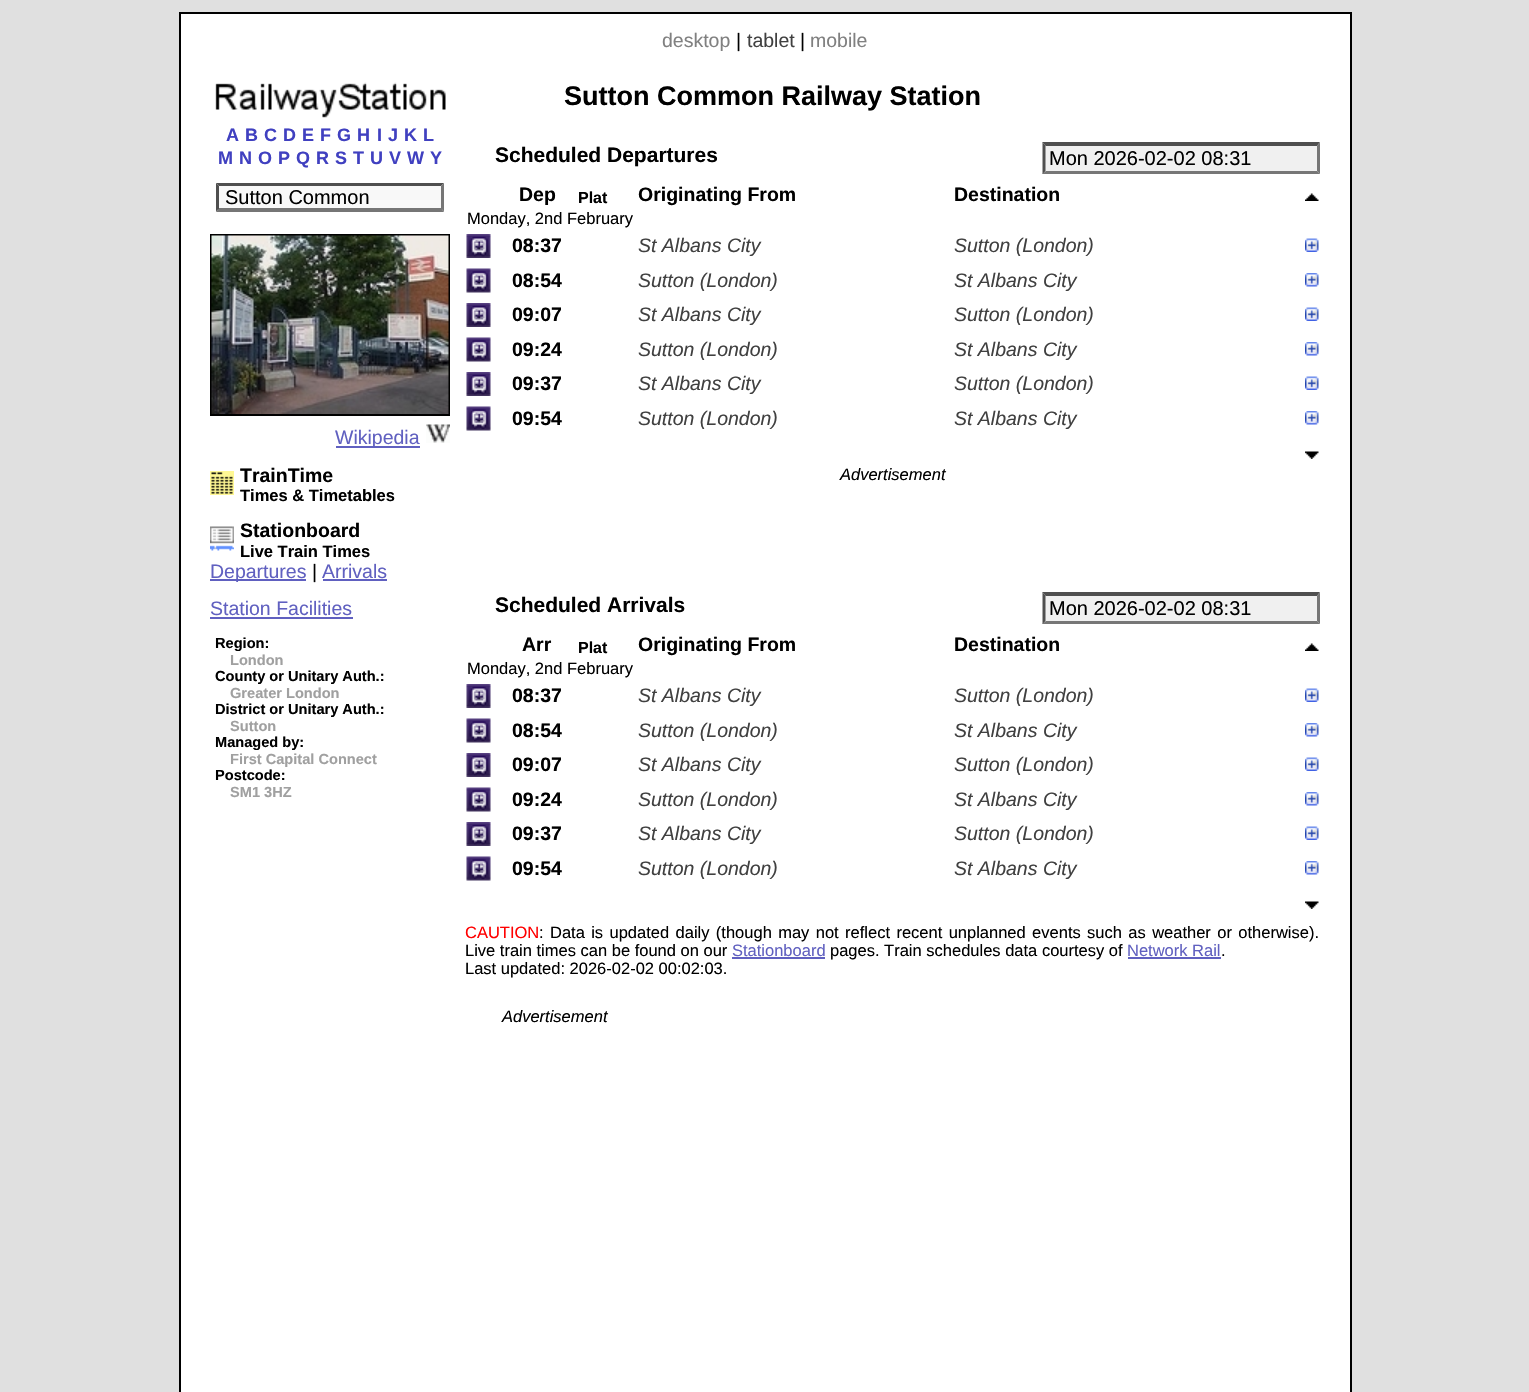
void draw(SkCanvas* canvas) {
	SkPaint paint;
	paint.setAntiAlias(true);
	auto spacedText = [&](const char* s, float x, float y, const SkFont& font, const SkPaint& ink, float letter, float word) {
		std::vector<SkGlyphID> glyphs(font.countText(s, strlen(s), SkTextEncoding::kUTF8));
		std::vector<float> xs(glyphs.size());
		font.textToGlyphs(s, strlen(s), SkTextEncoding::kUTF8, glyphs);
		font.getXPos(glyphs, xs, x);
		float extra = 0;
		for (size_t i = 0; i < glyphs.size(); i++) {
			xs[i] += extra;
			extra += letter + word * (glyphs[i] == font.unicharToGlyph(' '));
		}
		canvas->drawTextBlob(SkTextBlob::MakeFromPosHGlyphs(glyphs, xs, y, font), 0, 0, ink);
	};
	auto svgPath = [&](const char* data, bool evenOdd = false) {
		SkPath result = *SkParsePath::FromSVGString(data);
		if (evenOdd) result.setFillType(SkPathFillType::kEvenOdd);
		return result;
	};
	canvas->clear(0xffe0e0e0);
	paint.setColor(0xffffffff);
	canvas->drawRect(SkRect::MakeXYWH(180, 13, 1171, 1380), paint);
	paint.setStroke(true);
	paint.setStrokeWidth(2);
	paint.setColor(0xff000000);
	canvas->drawRect(SkRect::MakeXYWH(180, 13, 1171, 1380), paint);
	SkFont f1(fontMgr->matchFamilyStyle("Liberation Sans", SkFontStyle::Normal()), 19.5);
	f1.setSubpixel(true);
	paint.setStroke(false);
	paint.setColor(0xff808080);
	canvas->drawString("desktop", 662, 47, f1, paint);
	paint.setColor(0xff000000);
	canvas->drawString("|", 736, 47, f1, paint);
	paint.setColor(0xff404040);
	canvas->drawString("tablet", 747, 47, f1, paint);
	paint.setColor(0xff000000);
	canvas->drawString("|", 800, 47, f1, paint);
	paint.setColor(0xff808080);
	canvas->drawString("mobile", 810, 47, f1, paint);
	canvas->drawImageRect(SkImages::DeferredFromEncodedData(SkData::MakeFromFileName("img1.png")), SkRect::MakeXYWH(215, 82, 231, 36), SkSamplingOptions());
	SkFont f2(fontMgr->matchFamilyStyle("Liberation Sans", SkFontStyle::Bold()), 18);
	f2.setSubpixel(true);
	paint.setColor(0xff4040c0);
	canvas->drawString("A", 226, 141, f2, paint);
	canvas->drawString("B", 245, 141, f2, paint);
	canvas->drawString("C", 264, 141, f2, paint);
	canvas->drawString("D", 283, 141, f2, paint);
	canvas->drawString("E", 302, 141, f2, paint);
	canvas->drawString("F", 320, 141, f2, paint);
	canvas->drawString("G", 337, 141, f2, paint);
	canvas->drawString("H", 357, 141, f2, paint);
	canvas->drawString("I", 377, 141, f2, paint);
	canvas->drawString("J", 388, 141, f2, paint);
	canvas->drawString("K", 404, 141, f2, paint);
	canvas->drawString("L", 423, 141, f2, paint);
	canvas->drawString("M", 218, 164, f2, paint);
	canvas->drawString("N", 239, 164, f2, paint);
	canvas->drawString("O", 258, 164, f2, paint);
	canvas->drawString("P", 278, 164, f2, paint);
	canvas->drawString("Q", 296, 164, f2, paint);
	canvas->drawString("R", 316, 164, f2, paint);
	canvas->drawString("S", 335, 164, f2, paint);
	canvas->drawString("T", 353, 164, f2, paint);
	canvas->drawString("U", 370, 164, f2, paint);
	canvas->drawString("V", 389, 164, f2, paint);
	canvas->drawString("W", 407, 164, f2, paint);
	canvas->drawString("Y", 430, 164, f2, paint);
	paint.setColor(0xfff8f8f8);
	canvas->drawRect(SkRect::MakeXYWH(216, 183, 228, 29), paint);
	paint.setColor(0xff4f4f4f);
	canvas->drawPath(svgPath("M216 183H444L441 186H219Z"), paint);
	paint.setColor(0xff767676);
	canvas->drawPath(svgPath("M444 183V211.5L441 208.5V186Z"), paint);
	canvas->drawPath(svgPath("M444 212H216L219 208H441Z"), paint);
	paint.setColor(0xff4f4f4f);
	canvas->drawPath(svgPath("M216 211.5V183L219 186V208.5Z"), paint);
	SkFont f3(fontMgr->matchFamilyStyle("Liberation Sans", SkFontStyle::Normal()), 20);
	f3.setSubpixel(true);
	paint.setColor(0xff000000);
	canvas->drawString("Sutton Common", 225, 204, f3, paint);
	paint.setStroke(true);
	canvas->drawRect(SkRect::MakeXYWH(211, 235, 238, 180), paint);
	canvas->drawImageRect(SkImages::DeferredFromEncodedData(SkData::MakeFromFileName("img2.png")), SkRect::MakeXYWH(211, 235, 238, 179), SkSamplingOptions());
	paint.setStroke(false);
	paint.setColor(0xff6060c0);
	canvas->drawRect(SkRect::MakeXYWH(336, 446, 84, 2), paint);
	canvas->drawString("Wikipedia", 335, 444, f1, paint);
	canvas->drawImageRect(SkImages::DeferredFromEncodedData(SkData::MakeFromFileName("img3.png")), SkRect::MakeXYWH(426, 424, 24, 19), SkSamplingOptions());
	canvas->drawImageRect(SkImages::DeferredFromEncodedData(SkData::MakeFromFileName("img4.png")), SkRect::MakeXYWH(210, 471, 24, 24), SkSamplingOptions());
	SkFont f4(fontMgr->matchFamilyStyle("Liberation Sans", SkFontStyle::Bold()), 19.5);
	f4.setSubpixel(true);
	paint.setColor(0xff000000);
	canvas->drawString("TrainTime", 240, 482, f4, paint);
	SkFont f5(fontMgr->matchFamilyStyle("Liberation Sans", SkFontStyle::Bold()), 16.5);
	f5.setSubpixel(true);
	canvas->drawString("Times & Timetables", 240, 501, f5, paint);
	canvas->drawImageRect(SkImages::DeferredFromEncodedData(SkData::MakeFromFileName("img5.png")), SkRect::MakeXYWH(210, 526, 24, 25), SkSamplingOptions());
	canvas->drawString("Stationboard", 240, 537, f4, paint);
	canvas->drawString("Live Train Times", 240, 557, f5, paint);
	paint.setColor(0xff6060c0);
	canvas->drawRect(SkRect::MakeXYWH(210, 579, 96, 2), paint);
	canvas->drawString("Departures", 210, 578, f1, paint);
	paint.setColor(0xff000000);
	canvas->drawString("|", 312, 578, f1, paint);
	paint.setColor(0xff6060c0);
	canvas->drawString("Arrivals", 322, 578, f1, paint);
	canvas->drawRect(SkRect::MakeXYWH(323, 579, 64, 2), paint);
	canvas->drawString("Station Facilities", 210, 615, f1, paint);
	canvas->drawRect(SkRect::MakeXYWH(210, 617, 143, 2), paint);
	SkFont f6(fontMgr->matchFamilyStyle("Liberation Sans", SkFontStyle::Bold()), 14.6);
	f6.setSubpixel(true);
	paint.setColor(0xff000000);
	canvas->drawString("Region:", 215, 648, f6, paint);
	paint.setColor(0xffa0a0a0);
	canvas->drawString("London", 230, 665, f6, paint);
	paint.setColor(0xff000000);
	canvas->drawString("County or Unitary Auth.:", 215, 681, f6, paint);
	paint.setColor(0xffa0a0a0);
	canvas->drawString("Greater London", 230, 698, f6, paint);
	paint.setColor(0xff000000);
	canvas->drawString("District or Unitary Auth.:", 215, 714, f6, paint);
	paint.setColor(0xffa0a0a0);
	canvas->drawString("Sutton", 230, 731, f6, paint);
	paint.setColor(0xff000000);
	canvas->drawString("Managed by:", 215, 747, f6, paint);
	paint.setColor(0xffa0a0a0);
	canvas->drawString("First Capital Connect", 230, 764, f6, paint);
	paint.setColor(0xff000000);
	canvas->drawString("Postcode:", 215, 780, f6, paint);
	paint.setColor(0xffa0a0a0);
	canvas->drawString("SM1 3HZ", 230, 797, f6, paint);
	SkFont f7(fontMgr->matchFamilyStyle("Liberation Sans", SkFontStyle::Bold()), 27);
	f7.setSubpixel(true);
	paint.setColor(0xff000000);
	canvas->drawString("Sutton Common Railway Station", 564, 105, f7, paint);
	SkFont f8(fontMgr->matchFamilyStyle("Liberation Sans", SkFontStyle::Bold()), 21);
	f8.setSubpixel(true);
	canvas->drawString("Scheduled Departures", 495, 162, f8, paint);
	paint.setColor(0xfff0f0f0);
	canvas->drawRect(SkRect::MakeXYWH(1043, 143, 277, 31), paint);
	paint.setColor(0xff4f4f4f);
	canvas->drawPath(svgPath("M1042 142H1320L1317 146H1046Z"), paint);
	paint.setColor(0xff767676);
	canvas->drawPath(svgPath("M1320 142.5V174L1317 171V145.5Z"), paint);
	canvas->drawPath(svgPath("M1320 174H1042L1046 171H1317Z"), paint);
	paint.setColor(0xff4f4f4f);
	canvas->drawPath(svgPath("M1042.5 174V142.5L1045.5 145.5V171Z"), paint);
	paint.setColor(0xff000000);
	canvas->drawString("Mon 2026-02-02 08:31", 1049, 165, f3, paint);
	canvas->drawString("Dep", 519, 201, f4, paint);
	SkFont f9(fontMgr->matchFamilyStyle("Liberation Sans", SkFontStyle::Bold()), 16);
	f9.setSubpixel(true);
	canvas->drawString("Plat", 578, 203, f9, paint);
	canvas->drawString("Originating From", 638, 201, f4, paint);
	canvas->drawString("Destination", 954, 201, f4, paint);
	canvas->drawImageRect(SkImages::DeferredFromEncodedData(SkData::MakeFromFileName("img6.png")), SkRect::MakeXYWH(1305, 193, 14, 8), SkSamplingOptions());
	SkFont f10(fontMgr->matchFamilyStyle("Liberation Sans", SkFontStyle::Normal()), 16.5);
	f10.setSubpixel(true);
	canvas->drawString("Monday, 2nd February", 467, 224, f10, paint);
	canvas->drawImageRect(SkImages::DeferredFromEncodedData(SkData::MakeFromFileName("img7.png")), SkRect::MakeXYWH(466, 234, 25, 24), SkSamplingOptions());
	canvas->drawString("08:37", 512, 252, f4, paint);
	SkFont f11(fontMgr->matchFamilyStyle("Liberation Sans", SkFontStyle::Italic()), 19.5);
	f11.setSubpixel(true);
	paint.setColor(0xff404040);
	canvas->drawString("St Albans City", 638, 252, f11, paint);
	canvas->drawString("Sutton (London)", 954, 252, f11, paint);
	canvas->drawImageRect(SkImages::DeferredFromEncodedData(SkData::MakeFromFileName("img8.png")), SkRect::MakeXYWH(1305, 238, 14, 14), SkSamplingOptions());
	canvas->drawImageRect(SkImages::DeferredFromEncodedData(SkData::MakeFromFileName("img9.png")), SkRect::MakeXYWH(466, 268, 25, 25), SkSamplingOptions());
	paint.setColor(0xff000000);
	canvas->drawString("08:54", 512, 287, f4, paint);
	paint.setColor(0xff404040);
	canvas->drawString("Sutton (London)", 638, 287, f11, paint);
	canvas->drawString("St Albans City", 954, 287, f11, paint);
	canvas->drawImageRect(SkImages::DeferredFromEncodedData(SkData::MakeFromFileName("img10.png")), SkRect::MakeXYWH(1305, 273, 14, 14), SkSamplingOptions());
	canvas->drawImageRect(SkImages::DeferredFromEncodedData(SkData::MakeFromFileName("img7.png")), SkRect::MakeXYWH(466, 303, 25, 24), SkSamplingOptions());
	paint.setColor(0xff000000);
	canvas->drawString("09:07", 512, 321, f4, paint);
	paint.setColor(0xff404040);
	canvas->drawString("St Albans City", 638, 321, f11, paint);
	canvas->drawString("Sutton (London)", 954, 321, f11, paint);
	canvas->drawImageRect(SkImages::DeferredFromEncodedData(SkData::MakeFromFileName("img8.png")), SkRect::MakeXYWH(1305, 307, 14, 14), SkSamplingOptions());
	canvas->drawImageRect(SkImages::DeferredFromEncodedData(SkData::MakeFromFileName("img9.png")), SkRect::MakeXYWH(466, 337, 25, 25), SkSamplingOptions());
	paint.setColor(0xff000000);
	canvas->drawString("09:24", 512, 356, f4, paint);
	paint.setColor(0xff404040);
	canvas->drawString("Sutton (London)", 638, 356, f11, paint);
	canvas->drawString("St Albans City", 954, 356, f11, paint);
	canvas->drawImageRect(SkImages::DeferredFromEncodedData(SkData::MakeFromFileName("img10.png")), SkRect::MakeXYWH(1305, 342, 14, 14), SkSamplingOptions());
	canvas->drawImageRect(SkImages::DeferredFromEncodedData(SkData::MakeFromFileName("img7.png")), SkRect::MakeXYWH(466, 372, 25, 24), SkSamplingOptions());
	paint.setColor(0xff000000);
	canvas->drawString("09:37", 512, 390, f4, paint);
	paint.setColor(0xff404040);
	canvas->drawString("St Albans City", 638, 390, f11, paint);
	canvas->drawString("Sutton (London)", 954, 390, f11, paint);
	canvas->drawImageRect(SkImages::DeferredFromEncodedData(SkData::MakeFromFileName("img8.png")), SkRect::MakeXYWH(1305, 376, 14, 14), SkSamplingOptions());
	canvas->drawImageRect(SkImages::DeferredFromEncodedData(SkData::MakeFromFileName("img9.png")), SkRect::MakeXYWH(466, 406, 25, 25), SkSamplingOptions());
	paint.setColor(0xff000000);
	canvas->drawString("09:54", 512, 425, f4, paint);
	paint.setColor(0xff404040);
	canvas->drawString("Sutton (London)", 638, 425, f11, paint);
	canvas->drawString("St Albans City", 954, 425, f11, paint);
	canvas->drawImageRect(SkImages::DeferredFromEncodedData(SkData::MakeFromFileName("img10.png")), SkRect::MakeXYWH(1305, 411, 14, 14), SkSamplingOptions());
	canvas->drawImageRect(SkImages::DeferredFromEncodedData(SkData::MakeFromFileName("img11.png")), SkRect::MakeXYWH(1305, 451, 14, 8), SkSamplingOptions());
	SkFont f12(fontMgr->matchFamilyStyle("Liberation Sans", SkFontStyle::Italic()), 16.5);
	f12.setSubpixel(true);
	paint.setColor(0xff000000);
	canvas->drawString("Advertisement", 840, 480, f12, paint);
	canvas->drawString("Scheduled Arrivals", 495, 612, f8, paint);
	paint.setColor(0xfff0f0f0);
	canvas->drawRect(SkRect::MakeXYWH(1043, 593, 277, 31), paint);
	paint.setColor(0xff4f4f4f);
	canvas->drawPath(svgPath("M1042 592H1320L1317 596H1046Z"), paint);
	paint.setColor(0xff767676);
	canvas->drawPath(svgPath("M1320 592.5V624L1317 621V595.5Z"), paint);
	canvas->drawPath(svgPath("M1320 624H1042L1046 621H1317Z"), paint);
	paint.setColor(0xff4f4f4f);
	canvas->drawPath(svgPath("M1042.5 624V592.5L1045.5 595.5V621Z"), paint);
	paint.setColor(0xff000000);
	canvas->drawString("Mon 2026-02-02 08:31", 1049, 615, f3, paint);
	canvas->drawString("Arr", 522, 651, f4, paint);
	canvas->drawString("Plat", 578, 653, f9, paint);
	canvas->drawString("Originating From", 638, 651, f4, paint);
	canvas->drawString("Destination", 954, 651, f4, paint);
	canvas->drawImageRect(SkImages::DeferredFromEncodedData(SkData::MakeFromFileName("img6.png")), SkRect::MakeXYWH(1305, 643, 14, 8), SkSamplingOptions());
	canvas->drawString("Monday, 2nd February", 467, 674, f10, paint);
	canvas->drawImageRect(SkImages::DeferredFromEncodedData(SkData::MakeFromFileName("img7.png")), SkRect::MakeXYWH(466, 684, 25, 24), SkSamplingOptions());
	canvas->drawString("08:37", 512, 702, f4, paint);
	paint.setColor(0xff404040);
	canvas->drawString("St Albans City", 638, 702, f11, paint);
	canvas->drawString("Sutton (London)", 954, 702, f11, paint);
	canvas->drawImageRect(SkImages::DeferredFromEncodedData(SkData::MakeFromFileName("img8.png")), SkRect::MakeXYWH(1305, 688, 14, 14), SkSamplingOptions());
	canvas->drawImageRect(SkImages::DeferredFromEncodedData(SkData::MakeFromFileName("img9.png")), SkRect::MakeXYWH(466, 718, 25, 25), SkSamplingOptions());
	paint.setColor(0xff000000);
	canvas->drawString("08:54", 512, 737, f4, paint);
	paint.setColor(0xff404040);
	canvas->drawString("Sutton (London)", 638, 737, f11, paint);
	canvas->drawString("St Albans City", 954, 737, f11, paint);
	canvas->drawImageRect(SkImages::DeferredFromEncodedData(SkData::MakeFromFileName("img10.png")), SkRect::MakeXYWH(1305, 723, 14, 14), SkSamplingOptions());
	canvas->drawImageRect(SkImages::DeferredFromEncodedData(SkData::MakeFromFileName("img7.png")), SkRect::MakeXYWH(466, 753, 25, 24), SkSamplingOptions());
	paint.setColor(0xff000000);
	canvas->drawString("09:07", 512, 771, f4, paint);
	paint.setColor(0xff404040);
	canvas->drawString("St Albans City", 638, 771, f11, paint);
	canvas->drawString("Sutton (London)", 954, 771, f11, paint);
	canvas->drawImageRect(SkImages::DeferredFromEncodedData(SkData::MakeFromFileName("img8.png")), SkRect::MakeXYWH(1305, 757, 14, 14), SkSamplingOptions());
	canvas->drawImageRect(SkImages::DeferredFromEncodedData(SkData::MakeFromFileName("img9.png")), SkRect::MakeXYWH(466, 787, 25, 25), SkSamplingOptions());
	paint.setColor(0xff000000);
	canvas->drawString("09:24", 512, 806, f4, paint);
	paint.setColor(0xff404040);
	canvas->drawString("Sutton (London)", 638, 806, f11, paint);
	canvas->drawString("St Albans City", 954, 806, f11, paint);
	canvas->drawImageRect(SkImages::DeferredFromEncodedData(SkData::MakeFromFileName("img10.png")), SkRect::MakeXYWH(1305, 792, 14, 14), SkSamplingOptions());
	canvas->drawImageRect(SkImages::DeferredFromEncodedData(SkData::MakeFromFileName("img7.png")), SkRect::MakeXYWH(466, 822, 25, 24), SkSamplingOptions());
	paint.setColor(0xff000000);
	canvas->drawString("09:37", 512, 840, f4, paint);
	paint.setColor(0xff404040);
	canvas->drawString("St Albans City", 638, 840, f11, paint);
	canvas->drawString("Sutton (London)", 954, 840, f11, paint);
	canvas->drawImageRect(SkImages::DeferredFromEncodedData(SkData::MakeFromFileName("img8.png")), SkRect::MakeXYWH(1305, 826, 14, 14), SkSamplingOptions());
	canvas->drawImageRect(SkImages::DeferredFromEncodedData(SkData::MakeFromFileName("img9.png")), SkRect::MakeXYWH(466, 856, 25, 25), SkSamplingOptions());
	paint.setColor(0xff000000);
	canvas->drawString("09:54", 512, 875, f4, paint);
	paint.setColor(0xff404040);
	canvas->drawString("Sutton (London)", 638, 875, f11, paint);
	canvas->drawString("St Albans City", 954, 875, f11, paint);
	canvas->drawImageRect(SkImages::DeferredFromEncodedData(SkData::MakeFromFileName("img10.png")), SkRect::MakeXYWH(1305, 861, 14, 14), SkSamplingOptions());
	canvas->drawImageRect(SkImages::DeferredFromEncodedData(SkData::MakeFromFileName("img11.png")), SkRect::MakeXYWH(1305, 901, 14, 8), SkSamplingOptions());
	paint.setColor(0xffff0000);
	canvas->drawString("CAUTION", 465, 938, f10, paint);
	paint.setColor(0xff000000);
	spacedText(": Data is updated daily (though may not reflect recent unplanned events such as weather or otherwise).", 539, 938, f10, paint, 0, 1.8);
	canvas->drawString("Live train times can be found on our", 465, 956, f10, paint);
	paint.setColor(0xff6060c0);
	canvas->drawString("Stationboard", 732, 956, f10, paint);
	canvas->drawRect(SkRect::MakeXYWH(732, 957, 93, 2), paint);
	paint.setColor(0xff000000);
	canvas->drawString("pages. Train schedules data courtesy of", 830, 956, f10, paint);
	paint.setColor(0xff6060c0);
	canvas->drawString("Network Rail", 1127, 956, f10, paint);
	paint.setColor(0xff000000);
	canvas->drawString(".", 1221, 956, f10, paint);
	paint.setColor(0xff6060c0);
	canvas->drawRect(SkRect::MakeXYWH(1128, 957, 93, 2), paint);
	paint.setColor(0xff000000);
	canvas->drawString("Last updated: 2026-02-02 00:02:03.", 465, 974, f10, paint);
	canvas->drawString("Advertisement", 502, 1022, f12, paint);
}
